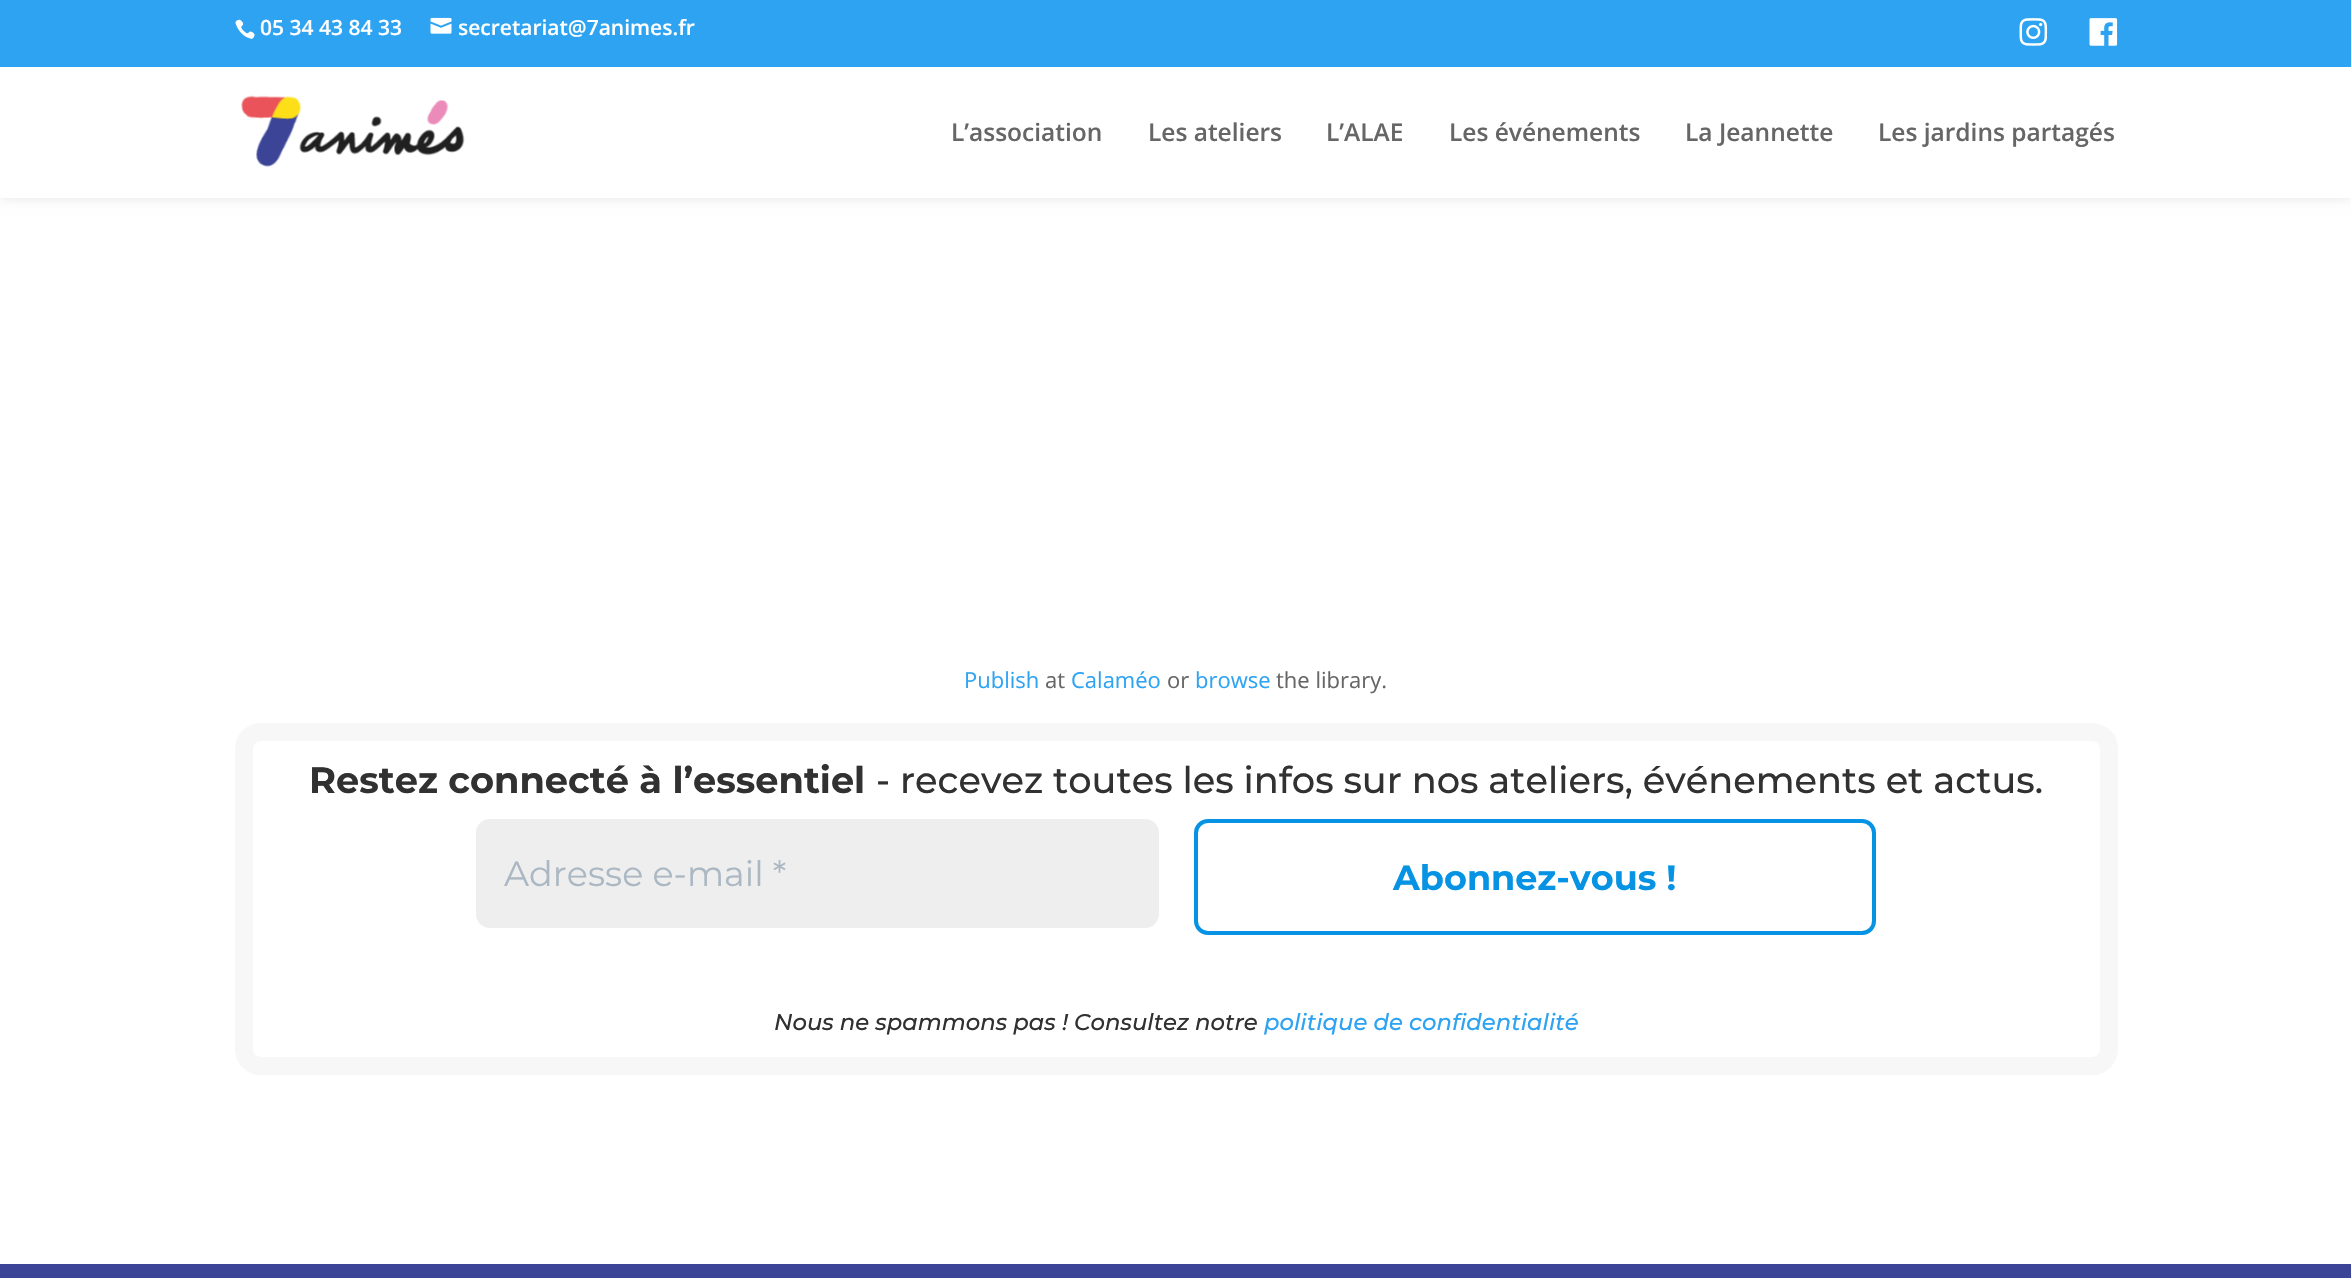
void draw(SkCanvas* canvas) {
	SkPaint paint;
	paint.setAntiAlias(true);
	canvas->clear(0xffffffff);
	paint.setColor(0x1a000000);
	paint.setMaskFilter(SkMaskFilter::MakeBlur(kNormal_SkBlurStyle, 6));
	canvas->drawRect(SkRect::MakeXYWH(0, 67, 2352, 131), paint);
	paint.setMaskFilter(nullptr);
	paint.setColor(0xff2ea3f2);
	canvas->drawRect(SkRect::MakeXYWH(0, 0, 2351, 67), paint);
	canvas->drawImageRect(SkImages::DeferredFromEncodedData(SkData::MakeFromFileName("img1.png")), SkRect::MakeXYWH(235, 19, 20, 20), SkSamplingOptions());
	SkFont f1(fontMgr->matchFamilyStyle("Open Sans", SkFontStyle(600, SkFontStyle::kNormal_Width, SkFontStyle::kUpright_Slant)), 21);
	f1.setSubpixel(true);
	paint.setColor(0xffffffff);
	canvas->drawString("05 34 43 84 33", 260, 35, f1, paint);
	canvas->drawImageRect(SkImages::DeferredFromEncodedData(SkData::MakeFromFileName("img2.png")), SkRect::MakeXYWH(430, 17, 22, 17), SkSamplingOptions());
	canvas->drawString("secretariat@7animes.fr", 458, 35, f1, paint);
	canvas->drawImageRect(SkImages::DeferredFromEncodedData(SkData::MakeFromFileName("img3.png")), SkRect::MakeXYWH(2019, 18, 29, 28), SkSamplingOptions());
	canvas->drawImageRect(SkImages::DeferredFromEncodedData(SkData::MakeFromFileName("img4.png")), SkRect::MakeXYWH(2089, 18, 29, 28), SkSamplingOptions());
	canvas->drawRect(SkRect::MakeXYWH(0, 67, 2351, 131), paint);
	canvas->drawImageRect(SkImages::DeferredFromEncodedData(SkData::MakeFromFileName("img5.png")), SkRect::MakeXYWH(241, 95, 224, 72), SkSamplingOptions());
	SkFont f2(fontMgr->matchFamilyStyle("Open Sans", SkFontStyle(600, SkFontStyle::kNormal_Width, SkFontStyle::kUpright_Slant)), 24.5);
	f2.setSubpixel(true);
	paint.setColor(0xff666666);
	canvas->drawString("L’association", 951, 141, f2, paint);
	canvas->drawString("Les ateliers", 1148, 141, f2, paint);
	canvas->drawString("L’ALAE", 1326, 141, f2, paint);
	canvas->drawString("Les événements", 1449, 141, f2, paint);
	canvas->drawString("La Jeannette", 1685, 141, f2, paint);
	canvas->drawString("Les jardins partagés", 1878, 141, f2, paint);
	SkFont f3(fontMgr->matchFamilyStyle("Open Sans", SkFontStyle::Normal()), 22);
	f3.setSubpixel(true);
	paint.setColor(0xff2ea3f2);
	canvas->drawString("Publish", 964, 688, f3, paint);
	paint.setColor(0xff666666);
	canvas->drawString("at", 1045, 688, f3, paint);
	paint.setColor(0xff2ea3f2);
	canvas->drawString("Calaméo", 1071, 688, f3, paint);
	paint.setColor(0xff666666);
	canvas->drawString("or", 1167, 688, f3, paint);
	paint.setColor(0xff2ea3f2);
	canvas->drawString("browse", 1195, 688, f3, paint);
	paint.setColor(0xff666666);
	canvas->drawString("the library.", 1276, 688, f3, paint);
	paint.setStroke(true);
	paint.setStrokeWidth(18);
	paint.setColor(0xfff7f7f7);
	canvas->drawRoundRect(SkRect::MakeXYWH(244, 732, 1865, 334), 17, 17, paint);
	SkFont f4(fontMgr->matchFamilyStyle("Montserrat", SkFontStyle::Bold()), 36.75);
	f4.setSubpixel(true);
	paint.setStroke(false);
	paint.setColor(0xff313131);
	canvas->drawString("Restez connecté à l’essentiel", 309, 793, f4, paint);
	SkFont f5(fontMgr->matchFamilyStyle("Montserrat", SkFontStyle(100, SkFontStyle::kNormal_Width, SkFontStyle::kUpright_Slant)), 36.75);
	f5.setSubpixel(true);
	canvas->drawString("- recevez toutes les infos sur nos ateliers, événements et actus.", 876, 793, f5, paint);
	paint.setColor(0xffeeeeee);
	canvas->drawRoundRect(SkRect::MakeXYWH(476, 819, 683, 109), 14, 14, paint);
	SkFont f6(fontMgr->matchFamilyStyle("Montserrat", SkFontStyle::Normal()), 35);
	f6.setSubpixel(true);
	paint.setColor(0xffabb8c3);
	canvas->drawString("Adresse e-mail *", 504, 886, f6, paint);
	paint.setStroke(true);
	paint.setStrokeWidth(4);
	paint.setColor(0xff0693e3);
	canvas->drawRoundRect(SkRect::MakeXYWH(1196, 821, 678, 112), 12, 12, paint);
	SkFont f7(fontMgr->matchFamilyStyle("Montserrat", SkFontStyle::Bold()), 35);
	f7.setSubpixel(true);
	paint.setStroke(false);
	canvas->drawString("Abonnez-vous !", 1393, 890, f7, paint);
	SkFont f8(fontMgr->matchFamilyStyle("Montserrat", SkFontStyle(100, SkFontStyle::kNormal_Width, SkFontStyle::kItalic_Slant)), 22.75);
	f8.setSubpixel(true);
	paint.setColor(0xff313131);
	canvas->drawString("Nous ne spammons pas ! Consultez notre", 774, 1030, f8, paint);
	paint.setColor(0xff2ea3f2);
	canvas->drawString("politique de confidentialité", 1264, 1030, f8, paint);
	paint.setColor(0xff3b4496);
	canvas->drawRect(SkRect::MakeXYWH(0, 1264, 2351, 14), paint);
}
